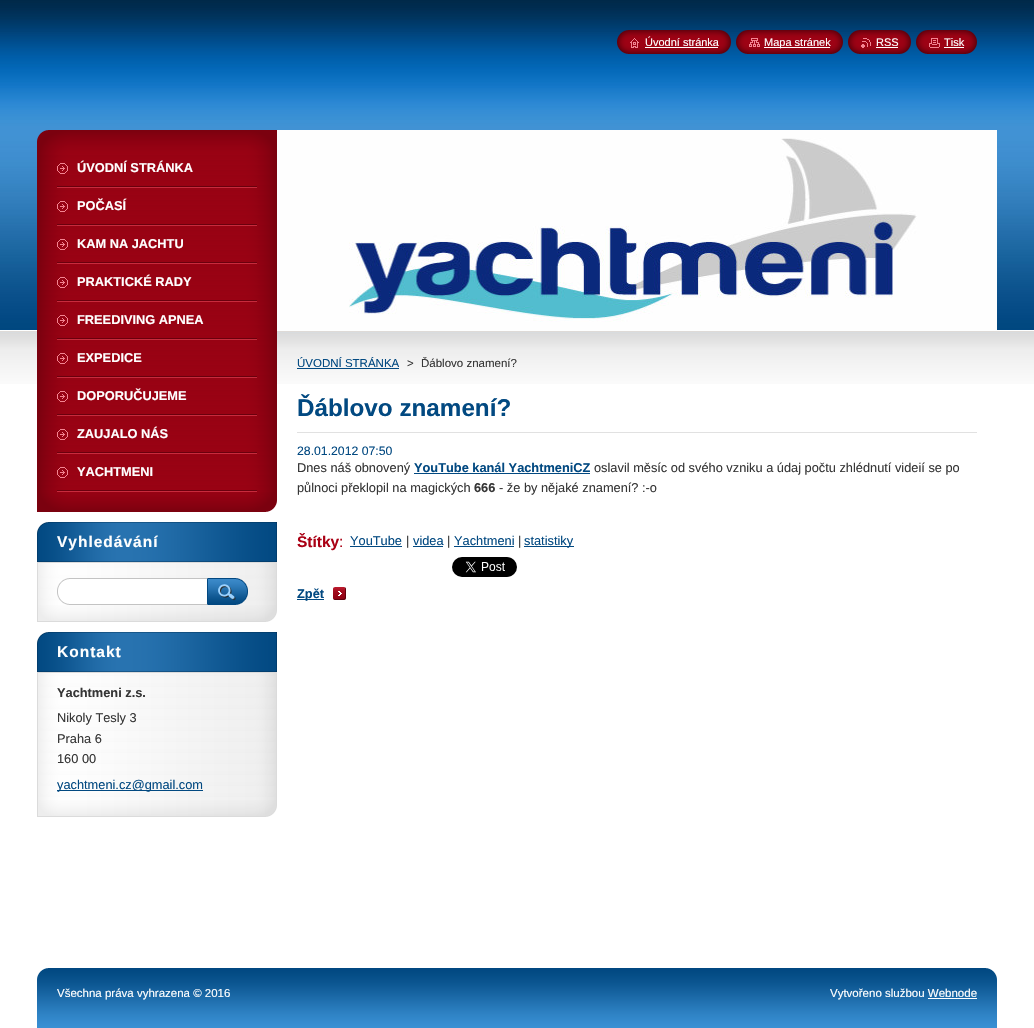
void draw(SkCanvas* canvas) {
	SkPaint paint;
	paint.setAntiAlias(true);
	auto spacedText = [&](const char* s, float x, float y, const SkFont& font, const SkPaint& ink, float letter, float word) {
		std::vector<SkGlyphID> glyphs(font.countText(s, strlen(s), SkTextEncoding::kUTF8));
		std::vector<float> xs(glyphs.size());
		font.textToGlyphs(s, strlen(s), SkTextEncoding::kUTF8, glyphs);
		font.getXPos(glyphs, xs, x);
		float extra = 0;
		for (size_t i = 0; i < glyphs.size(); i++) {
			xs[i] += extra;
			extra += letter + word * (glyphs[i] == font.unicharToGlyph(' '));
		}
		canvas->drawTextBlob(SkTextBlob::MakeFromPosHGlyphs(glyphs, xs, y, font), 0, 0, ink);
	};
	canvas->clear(0xffffffff);
	canvas->drawImageRect(SkImages::DeferredFromEncodedData(SkData::MakeFromFileName("img1.png")), SkRect::MakeXYWH(0, 0, 1034, 384), SkSamplingOptions());
	canvas->drawImageRect(SkImages::DeferredFromEncodedData(SkData::MakeFromFileName("img2.png")), SkRect::MakeXYWH(617, 30, 13, 24), SkSamplingOptions());
	canvas->drawImageRect(SkImages::DeferredFromEncodedData(SkData::MakeFromFileName("img3.png")), SkRect::MakeXYWH(630, 30, 101, 24), SkSamplingOptions());
	canvas->drawImageRect(SkImages::DeferredFromEncodedData(SkData::MakeFromFileName("img4.png")), SkRect::MakeXYWH(630, 38, 9, 10), SkSamplingOptions());
	SkFont f1(fontMgr->matchFamilyStyle("Liberation Sans", SkFontStyle::Normal()), 11);
	f1.setSubpixel(true);
	paint.setColor(0xffffffff);
	canvas->drawString("Úvodní stránka", 645, 46, f1, paint);
	canvas->drawRect(SkRect::MakeXYWH(645, 47, 73, 1), paint);
	canvas->drawImageRect(SkImages::DeferredFromEncodedData(SkData::MakeFromFileName("img2.png")), SkRect::MakeXYWH(736, 30, 13, 24), SkSamplingOptions());
	canvas->drawImageRect(SkImages::DeferredFromEncodedData(SkData::MakeFromFileName("img5.png")), SkRect::MakeXYWH(749, 30, 94, 24), SkSamplingOptions());
	canvas->drawImageRect(SkImages::DeferredFromEncodedData(SkData::MakeFromFileName("img6.png")), SkRect::MakeXYWH(749, 38, 11, 9), SkSamplingOptions());
	canvas->drawRect(SkRect::MakeXYWH(764, 47, 66, 1), paint);
	canvas->drawString("Mapa stránek", 764, 46, f1, paint);
	canvas->drawImageRect(SkImages::DeferredFromEncodedData(SkData::MakeFromFileName("img2.png")), SkRect::MakeXYWH(848, 30, 13, 24), SkSamplingOptions());
	canvas->drawImageRect(SkImages::DeferredFromEncodedData(SkData::MakeFromFileName("img7.png")), SkRect::MakeXYWH(861, 30, 50, 24), SkSamplingOptions());
	canvas->drawImageRect(SkImages::DeferredFromEncodedData(SkData::MakeFromFileName("img8.png")), SkRect::MakeXYWH(861, 38, 10, 10), SkSamplingOptions());
	canvas->drawString("RSS", 876, 46, f1, paint);
	canvas->drawRect(SkRect::MakeXYWH(876, 47, 22, 1), paint);
	canvas->drawImageRect(SkImages::DeferredFromEncodedData(SkData::MakeFromFileName("img2.png")), SkRect::MakeXYWH(916, 30, 13, 24), SkSamplingOptions());
	canvas->drawImageRect(SkImages::DeferredFromEncodedData(SkData::MakeFromFileName("img9.png")), SkRect::MakeXYWH(929, 30, 48, 24), SkSamplingOptions());
	canvas->drawImageRect(SkImages::DeferredFromEncodedData(SkData::MakeFromFileName("img10.png")), SkRect::MakeXYWH(929, 38, 11, 10), SkSamplingOptions());
	canvas->drawString("Tisk", 944, 46, f1, paint);
	canvas->drawRect(SkRect::MakeXYWH(944, 47, 20, 1), paint);
	canvas->drawImageRect(SkImages::DeferredFromEncodedData(SkData::MakeFromFileName("img11.png")), SkRect::MakeXYWH(37, 130, 240, 20), SkSamplingOptions());
	canvas->drawImageRect(SkImages::DeferredFromEncodedData(SkData::MakeFromFileName("img12.png")), SkRect::MakeXYWH(37, 492, 240, 20), SkSamplingOptions());
	canvas->drawImageRect(SkImages::DeferredFromEncodedData(SkData::MakeFromFileName("img13.png")), SkRect::MakeXYWH(37, 150, 240, 342), SkSamplingOptions());
	canvas->drawImageRect(SkImages::DeferredFromEncodedData(SkData::MakeFromFileName("img14.png")), SkRect::MakeXYWH(57, 186, 200, 2), SkSamplingOptions());
	canvas->drawImageRect(SkImages::DeferredFromEncodedData(SkData::MakeFromFileName("img15.png")), SkRect::MakeXYWH(57, 163, 11, 11), SkSamplingOptions());
	SkFont f2(fontMgr->matchFamilyStyle("Liberation Sans", SkFontStyle::Bold()), 12.8);
	f2.setSubpixel(true);
	canvas->drawString("ÚVODNÍ STRÁNKA", 77, 172, f2, paint);
	canvas->drawImageRect(SkImages::DeferredFromEncodedData(SkData::MakeFromFileName("img14.png")), SkRect::MakeXYWH(57, 224, 200, 2), SkSamplingOptions());
	canvas->drawImageRect(SkImages::DeferredFromEncodedData(SkData::MakeFromFileName("img15.png")), SkRect::MakeXYWH(57, 201, 11, 11), SkSamplingOptions());
	canvas->drawString("POČASÍ", 77, 210, f2, paint);
	canvas->drawImageRect(SkImages::DeferredFromEncodedData(SkData::MakeFromFileName("img14.png")), SkRect::MakeXYWH(57, 262, 200, 2), SkSamplingOptions());
	canvas->drawImageRect(SkImages::DeferredFromEncodedData(SkData::MakeFromFileName("img15.png")), SkRect::MakeXYWH(57, 239, 11, 11), SkSamplingOptions());
	canvas->drawString("KAM NA JACHTU", 77, 248, f2, paint);
	canvas->drawImageRect(SkImages::DeferredFromEncodedData(SkData::MakeFromFileName("img14.png")), SkRect::MakeXYWH(57, 300, 200, 2), SkSamplingOptions());
	canvas->drawImageRect(SkImages::DeferredFromEncodedData(SkData::MakeFromFileName("img15.png")), SkRect::MakeXYWH(57, 277, 11, 11), SkSamplingOptions());
	canvas->drawString("PRAKTICKÉ RADY", 77, 286, f2, paint);
	canvas->drawImageRect(SkImages::DeferredFromEncodedData(SkData::MakeFromFileName("img14.png")), SkRect::MakeXYWH(57, 338, 200, 2), SkSamplingOptions());
	canvas->drawImageRect(SkImages::DeferredFromEncodedData(SkData::MakeFromFileName("img15.png")), SkRect::MakeXYWH(57, 315, 11, 11), SkSamplingOptions());
	canvas->drawString("FREEDIVING APNEA", 77, 324, f2, paint);
	canvas->drawImageRect(SkImages::DeferredFromEncodedData(SkData::MakeFromFileName("img14.png")), SkRect::MakeXYWH(57, 376, 200, 2), SkSamplingOptions());
	canvas->drawImageRect(SkImages::DeferredFromEncodedData(SkData::MakeFromFileName("img15.png")), SkRect::MakeXYWH(57, 353, 11, 11), SkSamplingOptions());
	canvas->drawString("EXPEDICE", 77, 362, f2, paint);
	canvas->drawImageRect(SkImages::DeferredFromEncodedData(SkData::MakeFromFileName("img14.png")), SkRect::MakeXYWH(57, 414, 200, 2), SkSamplingOptions());
	canvas->drawImageRect(SkImages::DeferredFromEncodedData(SkData::MakeFromFileName("img15.png")), SkRect::MakeXYWH(57, 391, 11, 11), SkSamplingOptions());
	canvas->drawString("DOPORUČUJEME", 77, 400, f2, paint);
	canvas->drawImageRect(SkImages::DeferredFromEncodedData(SkData::MakeFromFileName("img14.png")), SkRect::MakeXYWH(57, 452, 200, 2), SkSamplingOptions());
	canvas->drawImageRect(SkImages::DeferredFromEncodedData(SkData::MakeFromFileName("img15.png")), SkRect::MakeXYWH(57, 429, 11, 11), SkSamplingOptions());
	canvas->drawString("ZAUJALO NÁS", 77, 438, f2, paint);
	canvas->drawImageRect(SkImages::DeferredFromEncodedData(SkData::MakeFromFileName("img14.png")), SkRect::MakeXYWH(57, 490, 200, 2), SkSamplingOptions());
	canvas->drawImageRect(SkImages::DeferredFromEncodedData(SkData::MakeFromFileName("img15.png")), SkRect::MakeXYWH(57, 467, 11, 11), SkSamplingOptions());
	canvas->drawString("YACHTMENI", 77, 476, f2, paint);
	canvas->drawImageRect(SkImages::DeferredFromEncodedData(SkData::MakeFromFileName("img16.png")), SkRect::MakeXYWH(37, 605, 240, 17), SkSamplingOptions());
	canvas->drawImageRect(SkImages::DeferredFromEncodedData(SkData::MakeFromFileName("img17.png")), SkRect::MakeXYWH(37, 522, 240, 40), SkSamplingOptions());
	SkFont f3(fontMgr->matchFamilyStyle("Liberation Sans", SkFontStyle::Bold()), 15.5);
	f3.setSubpixel(true);
	spacedText("Vyhledávání", 57, 547, f3, paint, 1, 0);
	canvas->drawImageRect(SkImages::DeferredFromEncodedData(SkData::MakeFromFileName("img18.png")), SkRect::MakeXYWH(37, 563, 240, 42), SkSamplingOptions());
	paint.setColor(0xffdbdbdb);
	canvas->drawRect(SkRect::MakeXYWH(37, 562, 240, 1), paint);
	canvas->drawImageRect(SkImages::DeferredFromEncodedData(SkData::MakeFromFileName("img19.png")), SkRect::MakeXYWH(57, 578, 150, 27), SkSamplingOptions());
	canvas->drawImageRect(SkImages::DeferredFromEncodedData(SkData::MakeFromFileName("img20.png")), SkRect::MakeXYWH(207, 578, 41, 27), SkSamplingOptions());
	canvas->drawImageRect(SkImages::DeferredFromEncodedData(SkData::MakeFromFileName("img16.png")), SkRect::MakeXYWH(37, 800, 240, 17), SkSamplingOptions());
	canvas->drawImageRect(SkImages::DeferredFromEncodedData(SkData::MakeFromFileName("img17.png")), SkRect::MakeXYWH(37, 632, 240, 40), SkSamplingOptions());
	paint.setColor(0xffffffff);
	spacedText("Kontakt", 57, 657, f3, paint, 1, 0);
	canvas->drawImageRect(SkImages::DeferredFromEncodedData(SkData::MakeFromFileName("img21.png")), SkRect::MakeXYWH(37, 673, 240, 127), SkSamplingOptions());
	paint.setColor(0xffdbdbdb);
	canvas->drawRect(SkRect::MakeXYWH(37, 672, 240, 1), paint);
	paint.setColor(0xff363636);
	canvas->drawString("Yachtmeni z.s.", 57, 697, f2, paint);
	SkFont f4(fontMgr->matchFamilyStyle("Liberation Sans", SkFontStyle::Normal()), 12.8);
	f4.setSubpixel(true);
	canvas->drawString("Nikoly Tesly 3", 57, 722, f4, paint);
	canvas->drawString("Praha 6", 57, 743, f4, paint);
	canvas->drawString("160 00", 57, 763, f4, paint);
	paint.setColor(0xff024981);
	canvas->drawRect(SkRect::MakeXYWH(57, 790, 146, 1), paint);
	canvas->drawString("yachtmeni.cz@gmail.com", 57, 789, f4, paint);
	canvas->drawImageRect(SkImages::DeferredFromEncodedData(SkData::MakeFromFileName("img22.png")), SkRect::MakeXYWH(277, 130, 720, 200), SkSamplingOptions());
	SkFont f5(fontMgr->matchFamilyStyle("Liberation Sans", SkFontStyle::Normal()), 11.5);
	f5.setSubpixel(true);
	canvas->drawString("ÚVODNÍ STRÁNKA", 297, 367, f5, paint);
	canvas->drawRect(SkRect::MakeXYWH(297, 368, 102, 1), paint);
	paint.setColor(0xff363636);
	canvas->drawString(">", 407, 367, f5, paint);
	canvas->drawString("Ďáblovo znamení?", 421, 367, f5, paint);
	paint.setColor(0xffe1e1e1);
	canvas->drawRect(SkRect::MakeXYWH(297, 432, 680, 1), paint);
	SkFont f6(fontMgr->matchFamilyStyle("Liberation Sans", SkFontStyle::Bold()), 24.25);
	f6.setSubpixel(true);
	paint.setColor(0xff024981);
	canvas->drawString("Ďáblovo znamení?", 297, 416, f6, paint);
	SkFont f7(fontMgr->matchFamilyStyle("Liberation Sans", SkFontStyle::Normal()), 12.25);
	f7.setSubpixel(true);
	canvas->drawString("28.01.2012 07:50", 297, 455, f7, paint);
	paint.setColor(0xff363636);
	canvas->drawString("Dnes náš obnovený", 297, 472, f4, paint);
	paint.setColor(0xff024981);
	canvas->drawString("YouTube kanál YachtmeniCZ", 414, 472, f2, paint);
	canvas->drawRect(SkRect::MakeXYWH(414, 473, 176, 1), paint);
	paint.setColor(0xff363636);
	canvas->drawString("oslavil měsíc od svého vzniku a údaj počtu zhlédnutí videií se po", 594, 472, f4, paint);
	canvas->drawString("půlnoci překlopil na magických", 297, 492, f4, paint);
	canvas->drawString("666", 474, 492, f2, paint);
	canvas->drawString("- že by nějaké znamení? :-o", 499, 492, f4, paint);
	paint.setColor(0xffaa0014);
	canvas->drawString("Štítky", 297, 547, f3, paint);
	SkFont f8(fontMgr->matchFamilyStyle("Liberation Sans", SkFontStyle::Normal()), 15.5);
	f8.setSubpixel(true);
	canvas->drawString(":", 339, 547, f8, paint);
	paint.setColor(0xff024981);
	canvas->drawString("YouTube", 350, 545, f4, paint);
	canvas->drawRect(SkRect::MakeXYWH(350, 546, 52, 1), paint);
	paint.setColor(0xff363636);
	canvas->drawString("|", 406, 545, f4, paint);
	paint.setColor(0xff024981);
	canvas->drawString("videa", 413, 545, f4, paint);
	canvas->drawRect(SkRect::MakeXYWH(413, 546, 30, 1), paint);
	paint.setColor(0xff363636);
	canvas->drawString("|", 447, 545, f4, paint);
	paint.setColor(0xff024981);
	canvas->drawString("Yachtmeni", 454, 545, f4, paint);
	canvas->drawRect(SkRect::MakeXYWH(454, 546, 60, 1), paint);
	paint.setColor(0xff363636);
	canvas->drawString("|", 518, 545, f4, paint);
	paint.setColor(0xff024981);
	canvas->drawRect(SkRect::MakeXYWH(524, 546, 50, 1), paint);
	canvas->drawString("statistiky", 524, 545, f4, paint);
	canvas->drawImageRect(SkImages::DeferredFromEncodedData(SkData::MakeFromFileName("img23.png")), SkRect::MakeXYWH(452, 557, 65, 20), SkSamplingOptions());
	canvas->drawImageRect(SkImages::DeferredFromEncodedData(SkData::MakeFromFileName("img24.png")), SkRect::MakeXYWH(333, 587, 13, 13), SkSamplingOptions());
	canvas->drawRect(SkRect::MakeXYWH(297, 599, 27, 1), paint);
	canvas->drawString("Zpět", 297, 598, f2, paint);
	canvas->drawImageRect(SkImages::DeferredFromEncodedData(SkData::MakeFromFileName("img25.png")), SkRect::MakeXYWH(37, 968, 960, 60), SkSamplingOptions());
	paint.setColor(0xffffffff);
	canvas->drawString("Všechna práva vyhrazena © 2016", 57, 997, f5, paint);
	canvas->drawString("Vytvořeno službou Webnode", 830, 997, f5, paint);
	canvas->drawRect(SkRect::MakeXYWH(928, 998, 49, 1), paint);
}
